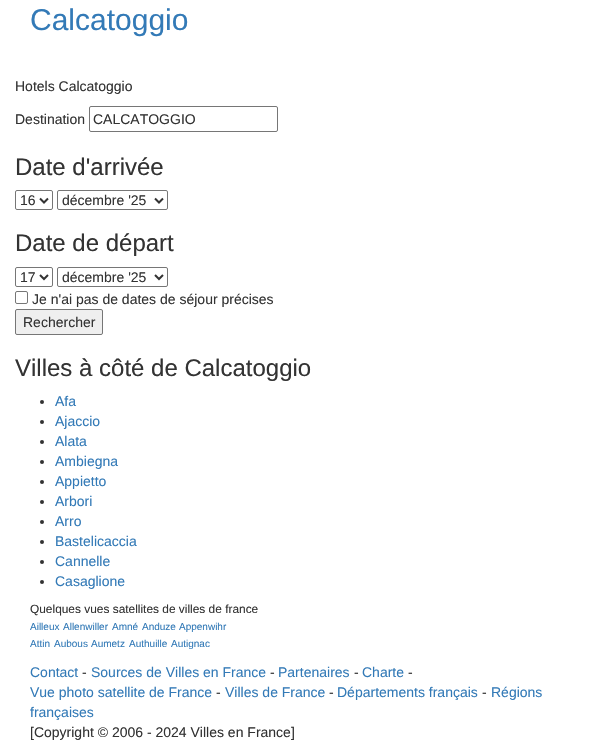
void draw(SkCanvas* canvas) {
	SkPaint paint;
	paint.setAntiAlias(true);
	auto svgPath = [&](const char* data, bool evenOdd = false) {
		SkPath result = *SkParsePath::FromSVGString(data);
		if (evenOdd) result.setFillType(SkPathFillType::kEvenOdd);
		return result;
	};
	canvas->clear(0xffffffff);
	SkFont f1(fontMgr->matchFamilyStyle("Liberation Sans", SkFontStyle::Normal()), 30);
	f1.setSubpixel(true);
	paint.setColor(0xff337ab7);
	canvas->drawString("Calcatoggio", 30, 30, f1, paint);
	SkFont f2(fontMgr->matchFamilyStyle("Liberation Sans", SkFontStyle::Normal()), 14);
	f2.setSubpixel(true);
	paint.setColor(0xff333333);
	canvas->drawString("Hotels Calcatoggio", 15, 91, f2, paint);
	canvas->drawString("Destination", 15, 124, f2, paint);
	paint.setStroke(true);
	paint.setStrokeWidth(1);
	paint.setColor(0xff767676);
	canvas->drawRoundRect(SkRect::MakeXYWH(89.5, 106.5, 188, 25), 1.5, 1.5, paint);
	paint.setStroke(false);
	paint.setColor(0xff333333);
	canvas->drawString("CALCATOGGIO", 93, 124, f2, paint);
	SkFont f3(fontMgr->matchFamilyStyle("Liberation Sans", SkFontStyle::Normal()), 24);
	f3.setSubpixel(true);
	canvas->drawString("Date d'arrivée", 15, 175, f3, paint);
	paint.setStroke(true);
	paint.setColor(0xff767676);
	canvas->drawRoundRect(SkRect::MakeXYWH(15.5, 190.5, 37, 19), 1.5, 1.5, paint);
	paint.setStrokeWidth(2);
	paint.setColor(0xff333333);
	canvas->drawPath(svgPath("M40 198.5L44 202.5L48 198.5"), paint);
	paint.setStroke(false);
	canvas->drawString("16", 20, 205, f2, paint);
	paint.setStroke(true);
	paint.setStrokeWidth(1);
	paint.setColor(0xff767676);
	canvas->drawRoundRect(SkRect::MakeXYWH(57.5, 190.5, 110, 19), 1.5, 1.5, paint);
	paint.setStrokeWidth(2);
	paint.setColor(0xff333333);
	canvas->drawPath(svgPath("M155 198.5L159 202.5L163 198.5"), paint);
	paint.setStroke(false);
	canvas->drawString("décembre '25", 62, 205, f2, paint);
	canvas->drawString("Date de départ", 15, 251, f3, paint);
	paint.setStroke(true);
	paint.setStrokeWidth(1);
	paint.setColor(0xff767676);
	canvas->drawRoundRect(SkRect::MakeXYWH(15.5, 267.5, 37, 19), 1.5, 1.5, paint);
	paint.setStrokeWidth(2);
	paint.setColor(0xff333333);
	canvas->drawPath(svgPath("M40 275L44 279L48 275"), paint);
	paint.setStroke(false);
	canvas->drawString("17", 20, 282, f2, paint);
	paint.setStroke(true);
	paint.setStrokeWidth(1);
	paint.setColor(0xff767676);
	canvas->drawRoundRect(SkRect::MakeXYWH(57.5, 267.5, 110, 19), 1.5, 1.5, paint);
	paint.setStrokeWidth(2);
	paint.setColor(0xff333333);
	canvas->drawPath(svgPath("M155 275L159 279L163 275"), paint);
	paint.setStroke(false);
	canvas->drawString("décembre '25", 62, 282, f2, paint);
	paint.setStroke(true);
	paint.setStrokeWidth(1);
	paint.setColor(0xff767676);
	canvas->drawRoundRect(SkRect::MakeXYWH(15.5, 291.5, 12, 12), 1.5, 1.5, paint);
	paint.setStroke(false);
	paint.setColor(0xff333333);
	canvas->drawString("Je n'ai pas de dates de séjour précises", 32, 304, f2, paint);
	paint.setColor(0xffefefef);
	canvas->drawRoundRect(SkRect::MakeXYWH(15.5, 309.5, 87, 25), 1.5, 1.5, paint);
	paint.setStroke(true);
	paint.setColor(0xff767676);
	canvas->drawRoundRect(SkRect::MakeXYWH(15.5, 309.5, 87, 25), 1.5, 1.5, paint);
	paint.setStroke(false);
	paint.setColor(0xff333333);
	canvas->drawString("Rechercher", 23, 327, f2, paint);
	canvas->drawString("Villes à côté de Calcatoggio", 15, 376, f3, paint);
	canvas->drawCircle(42, 402, 2, paint);
	paint.setColor(0xff337ab7);
	canvas->drawString("Afa", 55, 406, f2, paint);
	paint.setColor(0xff333333);
	canvas->drawCircle(42, 422, 2, paint);
	paint.setColor(0xff337ab7);
	canvas->drawString("Ajaccio", 55, 426, f2, paint);
	paint.setColor(0xff333333);
	canvas->drawCircle(42, 442, 2, paint);
	paint.setColor(0xff337ab7);
	canvas->drawString("Alata", 55, 446, f2, paint);
	paint.setColor(0xff333333);
	canvas->drawCircle(42, 462, 2, paint);
	paint.setColor(0xff337ab7);
	canvas->drawString("Ambiegna", 55, 466, f2, paint);
	paint.setColor(0xff333333);
	canvas->drawCircle(42, 482, 2, paint);
	paint.setColor(0xff337ab7);
	canvas->drawString("Appietto", 55, 486, f2, paint);
	paint.setColor(0xff333333);
	canvas->drawCircle(42, 502, 2, paint);
	paint.setColor(0xff337ab7);
	canvas->drawString("Arbori", 55, 506, f2, paint);
	paint.setColor(0xff333333);
	canvas->drawCircle(42, 522, 2, paint);
	paint.setColor(0xff337ab7);
	canvas->drawString("Arro", 55, 526, f2, paint);
	paint.setColor(0xff333333);
	canvas->drawCircle(42, 542, 2, paint);
	paint.setColor(0xff337ab7);
	canvas->drawString("Bastelicaccia", 55, 546, f2, paint);
	paint.setColor(0xff333333);
	canvas->drawCircle(42, 562, 2, paint);
	paint.setColor(0xff337ab7);
	canvas->drawString("Cannelle", 55, 566, f2, paint);
	paint.setColor(0xff333333);
	canvas->drawCircle(42, 582, 2, paint);
	paint.setColor(0xff337ab7);
	canvas->drawString("Casaglione", 55, 586, f2, paint);
	SkFont f4(fontMgr->matchFamilyStyle("Liberation Sans", SkFontStyle::Normal()), 11.9);
	f4.setSubpixel(true);
	paint.setColor(0xff333333);
	canvas->drawString("Quelques vues satellites de villes de france", 30, 613, f4, paint);
	SkFont f5(fontMgr->matchFamilyStyle("Liberation Sans", SkFontStyle::Normal()), 10);
	f5.setSubpixel(true);
	paint.setColor(0xff337ab7);
	canvas->drawString("Ailleux", 30, 630, f5, paint);
	canvas->drawString("Allenwiller", 63, 630, f5, paint);
	canvas->drawString("Amné", 112, 630, f5, paint);
	canvas->drawString("Anduze", 142, 630, f5, paint);
	canvas->drawString("Appenwihr", 179, 630, f5, paint);
	canvas->drawString("Attin", 30, 647, f5, paint);
	canvas->drawString("Aubous", 54, 647, f5, paint);
	canvas->drawString("Aumetz", 91, 647, f5, paint);
	canvas->drawString("Authuille", 129, 647, f5, paint);
	canvas->drawString("Autignac", 171, 647, f5, paint);
	canvas->drawString("Contact", 30, 677, f2, paint);
	paint.setColor(0xff333333);
	canvas->drawString("-", 82, 677, f2, paint);
	paint.setColor(0xff337ab7);
	canvas->drawString("Sources de Villes en France", 91, 677, f2, paint);
	paint.setColor(0xff333333);
	canvas->drawString("-", 270, 677, f2, paint);
	paint.setColor(0xff337ab7);
	canvas->drawString("Partenaires", 278, 677, f2, paint);
	paint.setColor(0xff333333);
	canvas->drawString("-", 354, 677, f2, paint);
	paint.setColor(0xff337ab7);
	canvas->drawString("Charte", 362, 677, f2, paint);
	paint.setColor(0xff333333);
	canvas->drawString("-", 408, 677, f2, paint);
	paint.setColor(0xff337ab7);
	canvas->drawString("Vue photo satellite de France", 30, 697, f2, paint);
	paint.setColor(0xff333333);
	canvas->drawString("-", 216, 697, f2, paint);
	paint.setColor(0xff337ab7);
	canvas->drawString("Villes de France", 225, 697, f2, paint);
	paint.setColor(0xff333333);
	canvas->drawString("-", 329, 697, f2, paint);
	paint.setColor(0xff337ab7);
	canvas->drawString("Départements français", 337, 697, f2, paint);
	paint.setColor(0xff333333);
	canvas->drawString("-", 482, 697, f2, paint);
	paint.setColor(0xff337ab7);
	canvas->drawString("Régions", 491, 697, f2, paint);
	canvas->drawString("françaises", 30, 717, f2, paint);
	paint.setColor(0xff333333);
	canvas->drawString("[Copyright © 2006 - 2024 Villes en France]", 30, 737, f2, paint);
}
